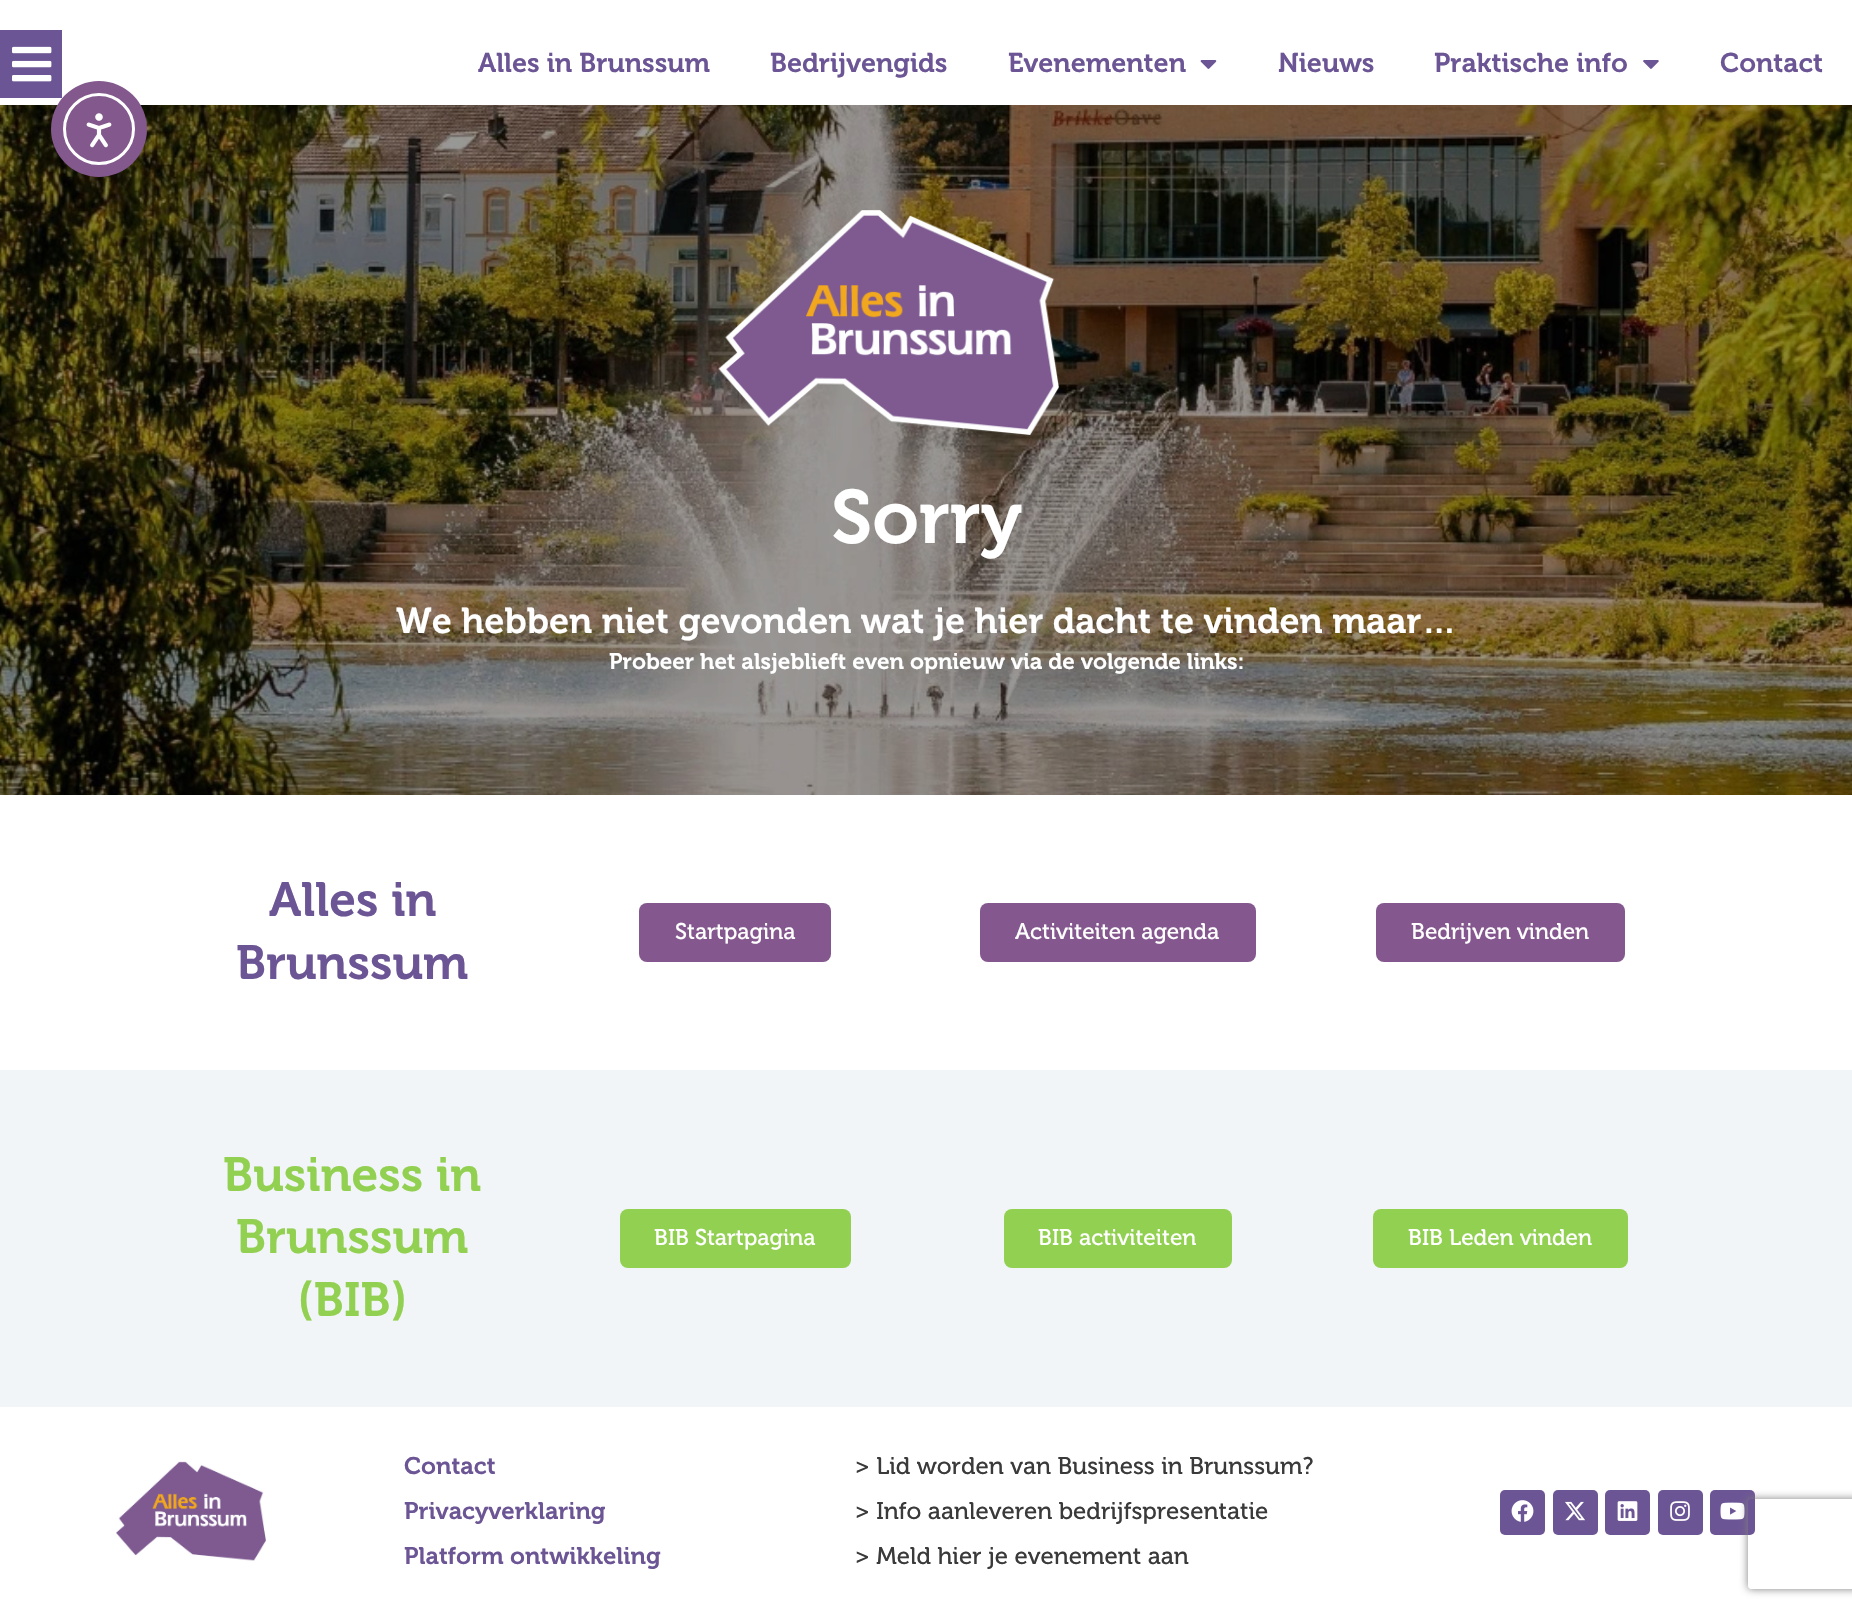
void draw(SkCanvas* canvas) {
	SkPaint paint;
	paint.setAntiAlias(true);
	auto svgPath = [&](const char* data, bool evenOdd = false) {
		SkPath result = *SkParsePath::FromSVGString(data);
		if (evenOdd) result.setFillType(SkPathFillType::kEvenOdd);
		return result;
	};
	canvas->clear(0xffffffff);
	paint.setColor(0xff6c5595);
	canvas->drawRect(SkRect::MakeXYWH(0, 30, 62, 68), paint);
	canvas->drawImageRect(SkImages::DeferredFromEncodedData(SkData::MakeFromFileName("img2.png")), SkRect::MakeXYWH(12, 46, 40, 36), SkSamplingOptions());
	canvas->drawImageRect(SkImages::DeferredFromEncodedData(SkData::MakeFromFileName("img5.png")), SkRect::MakeXYWH(0, 105, 1852, 690), SkSamplingOptions());
	paint.setColor(0xff83588d);
	canvas->drawCircle(99, 129, 48, paint);
	paint.setStroke(true);
	paint.setStrokeWidth(3);
	paint.setColor(0xffffffff);
	canvas->drawCircle(99, 129, 34.5, paint);
	canvas->drawImageRect(SkImages::DeferredFromEncodedData(SkData::MakeFromFileName("img1.png")), SkRect::MakeXYWH(86, 113, 26, 35), SkSamplingOptions());
	SkFont f1(fontMgr->matchFamilyStyle("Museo", SkFontStyle(600, SkFontStyle::kNormal_Width, SkFontStyle::kUpright_Slant)), 27);
	f1.setSubpixel(true);
	paint.setStroke(false);
	paint.setColor(0xff6c5595);
	canvas->drawString("Alles in Brunssum", 478, 72, f1, paint);
	canvas->drawString("Bedrijvengids", 770, 72, f1, paint);
	canvas->drawString("Evenementen", 1008, 72, f1, paint);
	canvas->drawImageRect(SkImages::DeferredFromEncodedData(SkData::MakeFromFileName("img3.png")), SkRect::MakeXYWH(1200, 60, 17, 9), SkSamplingOptions());
	canvas->drawString("Nieuws", 1278, 72, f1, paint);
	canvas->drawString("Praktische info", 1434, 72, f1, paint);
	canvas->drawImageRect(SkImages::DeferredFromEncodedData(SkData::MakeFromFileName("img4.png")), SkRect::MakeXYWH(1643, 60, 16, 9), SkSamplingOptions());
	canvas->drawString("Contact", 1720, 72, f1, paint);
	canvas->drawImageRect(SkImages::DeferredFromEncodedData(SkData::MakeFromFileName("img6.png")), SkRect::MakeXYWH(718, 210, 341, 225), SkSamplingOptions());
	SkFont f2(fontMgr->matchFamilyStyle("Museo", SkFontStyle(600, SkFontStyle::kNormal_Width, SkFontStyle::kUpright_Slant)), 75);
	f2.setSubpixel(true);
	paint.setColor(0xffffffff);
	canvas->drawString("Sorry", 831, 543, f2, paint);
	SkFont f3(fontMgr->matchFamilyStyle("Museo", SkFontStyle(600, SkFontStyle::kNormal_Width, SkFontStyle::kUpright_Slant)), 36);
	f3.setSubpixel(true);
	canvas->drawString("We hebben niet gevonden wat je hier dacht te vinden maar…", 396, 633, f3, paint);
	SkFont f4(fontMgr->matchFamilyStyle("Museo", SkFontStyle(600, SkFontStyle::kNormal_Width, SkFontStyle::kUpright_Slant)), 22.5);
	f4.setSubpixel(true);
	canvas->drawString("Probeer het alsjeblieft even opnieuw via de volgende links:", 609, 669, f4, paint);
	SkFont f5(fontMgr->matchFamilyStyle("Museo", SkFontStyle(600, SkFontStyle::kNormal_Width, SkFontStyle::kUpright_Slant)), 48);
	f5.setSubpixel(true);
	paint.setColor(0xff6c5595);
	canvas->drawString("Alles in", 269, 916, f5, paint);
	canvas->drawString("Brunssum", 236, 979, f5, paint);
	paint.setColor(0xff84578e);
	canvas->drawRoundRect(SkRect::MakeXYWH(639, 903, 192, 59), 8, 8, paint);
	SkFont f6(fontMgr->matchFamilyStyle("Museo", SkFontStyle::Normal()), 22.5);
	f6.setSubpixel(true);
	paint.setColor(0xffffffff);
	canvas->drawString("Startpagina", 675, 939, f6, paint);
	paint.setColor(0xff84578e);
	canvas->drawRoundRect(SkRect::MakeXYWH(980, 903, 276, 59), 8, 8, paint);
	paint.setColor(0xffffffff);
	canvas->drawString("Activiteiten agenda", 1015, 939, f6, paint);
	paint.setColor(0xff84578e);
	canvas->drawRoundRect(SkRect::MakeXYWH(1376, 903, 249, 59), 8, 8, paint);
	paint.setColor(0xffffffff);
	canvas->drawString("Bedrijven vinden", 1411, 939, f6, paint);
	paint.setColor(0xfff2f5f7);
	canvas->drawRect(SkRect::MakeXYWH(0, 1070, 1852, 337), paint);
	paint.setColor(0xff92d051);
	canvas->drawString("Business in", 223, 1191, f5, paint);
	canvas->drawString("Brunssum", 236, 1253, f5, paint);
	canvas->drawString("(BIB)", 297, 1316, f5, paint);
	canvas->drawRoundRect(SkRect::MakeXYWH(620, 1209, 231, 59), 8, 8, paint);
	paint.setColor(0xffffffff);
	canvas->drawString("BIB Startpagina", 654, 1245, f6, paint);
	paint.setColor(0xff92d051);
	canvas->drawRoundRect(SkRect::MakeXYWH(1004, 1209, 228, 59), 8, 8, paint);
	paint.setColor(0xffffffff);
	canvas->drawString("BIB activiteiten", 1038, 1245, f6, paint);
	paint.setColor(0xff92d051);
	canvas->drawRoundRect(SkRect::MakeXYWH(1373, 1209, 255, 59), 8, 8, paint);
	paint.setColor(0xffffffff);
	canvas->drawString("BIB Leden vinden", 1408, 1245, f6, paint);
	canvas->drawImageRect(SkImages::DeferredFromEncodedData(SkData::MakeFromFileName("img7.png")), SkRect::MakeXYWH(116, 1461, 150, 100), SkSamplingOptions());
	SkFont f7(fontMgr->matchFamilyStyle("Museo", SkFontStyle(600, SkFontStyle::kNormal_Width, SkFontStyle::kUpright_Slant)), 24);
	f7.setSubpixel(true);
	paint.setColor(0xff6c5595);
	canvas->drawString("Contact", 404, 1474, f7, paint);
	canvas->drawString("Privacyverklaring", 404, 1519, f7, paint);
	canvas->drawString("Platform ontwikkeling", 404, 1564, f7, paint);
	SkFont f8(fontMgr->matchFamilyStyle("Museo", SkFontStyle::Normal()), 24);
	f8.setSubpixel(true);
	paint.setColor(0xff3a3a3a);
	canvas->drawString("> Lid worden van Business in Brunssum?", 855, 1474, f8, paint);
	canvas->drawString("> Info aanleveren bedrijfspresentatie", 855, 1519, f8, paint);
	canvas->drawString("> Meld hier je evenement aan", 855, 1564, f8, paint);
	paint.setColor(0xff6c5595);
	canvas->drawRoundRect(SkRect::MakeXYWH(1500, 1490, 45, 45), 5, 5, paint);
	canvas->drawImageRect(SkImages::DeferredFromEncodedData(SkData::MakeFromFileName("img8.png")), SkRect::MakeXYWH(1511, 1500, 23, 22), SkSamplingOptions());
	canvas->drawRoundRect(SkRect::MakeXYWH(1553, 1490, 45, 45), 5, 5, paint);
	canvas->drawImageRect(SkImages::DeferredFromEncodedData(SkData::MakeFromFileName("img9.png")), SkRect::MakeXYWH(1565, 1501, 20, 20), SkSamplingOptions());
	canvas->drawRoundRect(SkRect::MakeXYWH(1605, 1490, 45, 45), 5, 5, paint);
	canvas->drawImageRect(SkImages::DeferredFromEncodedData(SkData::MakeFromFileName("img10.png")), SkRect::MakeXYWH(1617, 1501, 21, 20), SkSamplingOptions());
	canvas->drawRoundRect(SkRect::MakeXYWH(1658, 1490, 45, 45), 5, 5, paint);
	canvas->drawImageRect(SkImages::DeferredFromEncodedData(SkData::MakeFromFileName("img11.png")), SkRect::MakeXYWH(1670, 1501, 20, 20), SkSamplingOptions());
	canvas->drawRoundRect(SkRect::MakeXYWH(1710, 1490, 45, 45), 5, 5, paint);
	canvas->drawImageRect(SkImages::DeferredFromEncodedData(SkData::MakeFromFileName("img12.png")), SkRect::MakeXYWH(1720, 1502, 25, 18), SkSamplingOptions());
	canvas->save();
	canvas->clipPath(svgPath("M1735 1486H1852V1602H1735ZM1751 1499H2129C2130.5 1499 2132 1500.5 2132 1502V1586C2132 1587.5 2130.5 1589 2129 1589H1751C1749.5 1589 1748 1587.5 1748 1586V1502C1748 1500.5 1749.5 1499 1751 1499Z", true), true);
	paint.setColor(0xff808080);
	paint.setMaskFilter(SkMaskFilter::MakeBlur(kNormal_SkBlurStyle, 4));
	canvas->drawRoundRect(SkRect::MakeXYWH(1748, 1499, 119, 90), 3, 3, paint);
	paint.setMaskFilter(nullptr);
	canvas->restore();
}
